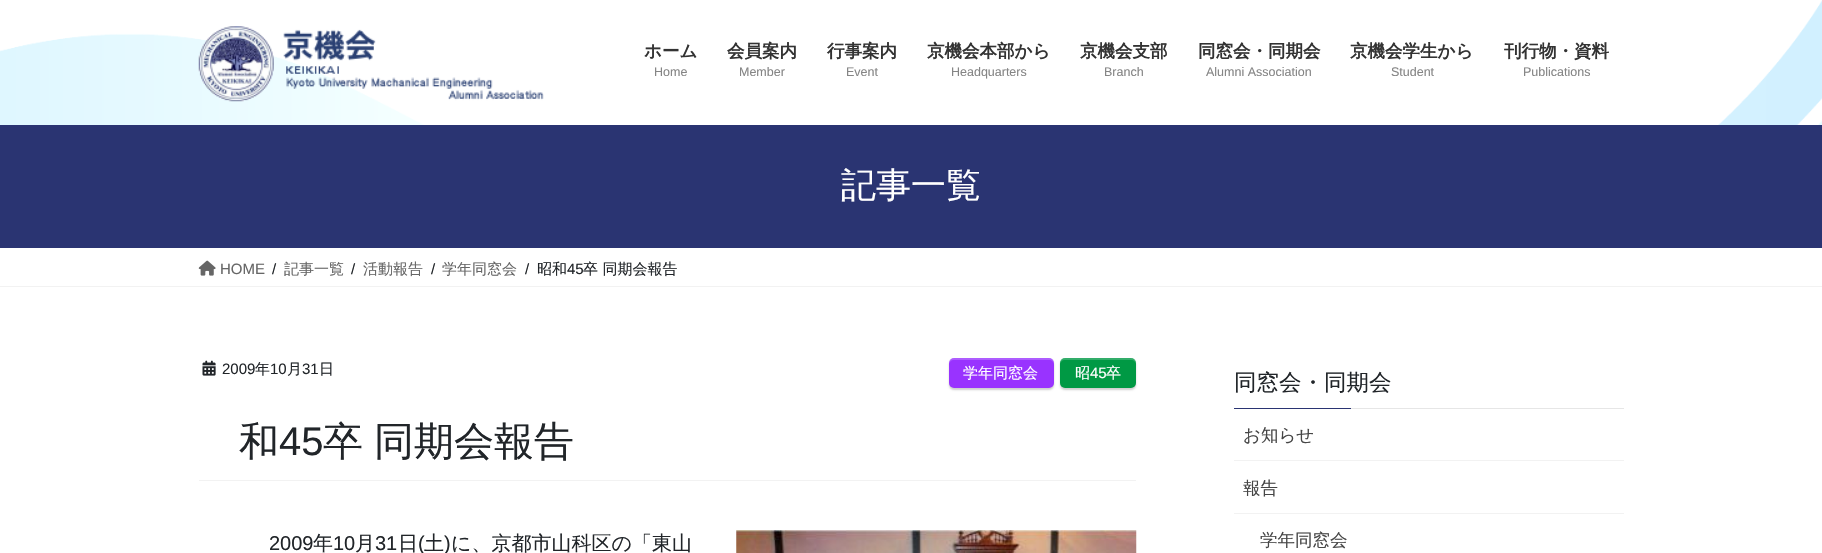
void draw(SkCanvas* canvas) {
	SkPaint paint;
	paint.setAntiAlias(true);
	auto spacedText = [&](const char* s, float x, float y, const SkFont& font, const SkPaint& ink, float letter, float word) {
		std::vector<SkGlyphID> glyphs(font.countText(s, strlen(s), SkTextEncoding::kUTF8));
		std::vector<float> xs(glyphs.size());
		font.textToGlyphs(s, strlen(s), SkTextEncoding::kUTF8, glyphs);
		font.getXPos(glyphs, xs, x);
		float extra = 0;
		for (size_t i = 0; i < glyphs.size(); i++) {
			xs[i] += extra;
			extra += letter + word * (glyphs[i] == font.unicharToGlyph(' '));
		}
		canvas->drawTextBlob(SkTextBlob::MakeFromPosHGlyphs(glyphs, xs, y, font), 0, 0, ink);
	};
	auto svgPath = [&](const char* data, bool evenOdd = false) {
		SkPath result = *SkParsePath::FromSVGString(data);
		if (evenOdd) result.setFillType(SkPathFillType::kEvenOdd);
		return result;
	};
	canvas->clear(0xffffffff);
	canvas->drawImageRect(SkImages::DeferredFromEncodedData(SkData::MakeFromFileName("img1.png")), SkRect::MakeXYWH(0, 0, 1822, 125), SkSamplingOptions());
	canvas->drawImageRect(SkImages::DeferredFromEncodedData(SkData::MakeFromFileName("img2.png")), SkRect::MakeXYWH(198, 26, 346, 76), SkSamplingOptions());
	SkFont f1(fontMgr->matchFamilyStyle("WenQuanYi Zen Hei", SkFontStyle::Bold()), 17.5);
	f1.setSubpixel(true);
	paint.setColor(0xff333333);
	canvas->drawString("ホーム", 644, 57, f1, paint);
	SkFont f2(fontMgr->matchFamilyStyle("Liberation Sans", SkFontStyle::Normal()), 12.5);
	f2.setSubpixel(true);
	paint.setColor(0xff858585);
	canvas->drawString("Home", 654, 76, f2, paint);
	paint.setColor(0xff333333);
	canvas->drawString("会員案内", 727, 57, f1, paint);
	paint.setColor(0xff858585);
	canvas->drawString("Member", 739, 76, f2, paint);
	paint.setColor(0xff333333);
	canvas->drawString("行事案内", 827, 57, f1, paint);
	paint.setColor(0xff858585);
	canvas->drawString("Event", 846, 76, f2, paint);
	paint.setColor(0xff333333);
	canvas->drawString("京機会本部から", 927, 57, f1, paint);
	paint.setColor(0xff858585);
	canvas->drawString("Headquarters", 951, 76, f2, paint);
	paint.setColor(0xff333333);
	canvas->drawString("京機会支部", 1080, 57, f1, paint);
	paint.setColor(0xff858585);
	canvas->drawString("Branch", 1104, 76, f2, paint);
	paint.setColor(0xff333333);
	canvas->drawString("同窓会・同期会", 1198, 57, f1, paint);
	paint.setColor(0xff858585);
	canvas->drawString("Alumni Association", 1206, 76, f2, paint);
	paint.setColor(0xff333333);
	canvas->drawString("京機会学生から", 1350, 57, f1, paint);
	paint.setColor(0xff858585);
	canvas->drawString("Student", 1391, 76, f2, paint);
	paint.setColor(0xff333333);
	canvas->drawString("刊行物・資料", 1504, 57, f1, paint);
	paint.setColor(0xff858585);
	canvas->drawString("Publications", 1523, 76, f2, paint);
	paint.setColor(0xff2a3472);
	canvas->drawRect(SkRect::MakeXYWH(0, 125, 1822, 123), paint);
	SkFont f3(fontMgr->matchFamilyStyle("WenQuanYi Zen Hei", SkFontStyle(500, SkFontStyle::kNormal_Width, SkFontStyle::kUpright_Slant)), 35);
	f3.setSubpixel(true);
	paint.setColor(0xffffffff);
	canvas->drawString("記事一覧", 841, 197, f3, paint);
	paint.setColor(0xfff2f2f2);
	canvas->drawRect(SkRect::MakeXYWH(0, 286, 1822, 1), paint);
	canvas->drawImageRect(SkImages::DeferredFromEncodedData(SkData::MakeFromFileName("img3.png")), SkRect::MakeXYWH(198, 260, 18, 16), SkSamplingOptions());
	SkFont f4(fontMgr->matchFamilyStyle("Liberation Sans", SkFontStyle::Normal()), 15);
	f4.setSubpixel(true);
	paint.setColor(0xff666666);
	canvas->drawString("HOME", 220, 274, f4, paint);
	paint.setColor(0xff212529);
	canvas->drawString("/", 272, 274, f4, paint);
	SkFont f5(fontMgr->matchFamilyStyle("WenQuanYi Zen Hei", SkFontStyle(500, SkFontStyle::kNormal_Width, SkFontStyle::kUpright_Slant)), 15);
	f5.setSubpixel(true);
	paint.setColor(0xff666666);
	canvas->drawString("記事一覧", 284, 274, f5, paint);
	paint.setColor(0xff212529);
	canvas->drawString("/", 351, 274, f4, paint);
	paint.setColor(0xff666666);
	canvas->drawString("活動報告", 363, 274, f5, paint);
	paint.setColor(0xff212529);
	canvas->drawString("/", 431, 274, f4, paint);
	paint.setColor(0xff666666);
	canvas->drawString("学年同窓会", 442, 274, f5, paint);
	paint.setColor(0xff212529);
	canvas->drawString("/", 525, 274, f4, paint);
	canvas->drawString("昭和", 537, 274, f5, paint);
	canvas->drawString("45", 567, 274, f4, paint);
	canvas->drawString("卒 同期会報告", 583, 274, f5, paint);
	paint.setColor(0xfff2f2f2);
	canvas->drawRect(SkRect::MakeXYWH(199, 480, 937, 1), paint);
	canvas->drawImageRect(SkImages::DeferredFromEncodedData(SkData::MakeFromFileName("img4.png")), SkRect::MakeXYWH(202, 360, 14, 16), SkSamplingOptions());
	paint.setColor(0xff212529);
	canvas->drawString("2009", 222, 374, f4, paint);
	canvas->drawString("年", 255, 374, f5, paint);
	canvas->drawString("10", 270, 374, f4, paint);
	canvas->drawString("月", 287, 374, f5, paint);
	canvas->drawString("31", 302, 374, f4, paint);
	canvas->drawString("日", 319, 374, f5, paint);
	paint.setColor(0x30000000);
	paint.setMaskFilter(SkMaskFilter::MakeBlur(kNormal_SkBlurStyle, 1));
	canvas->drawRoundRect(SkRect::MakeXYWH(949, 360, 105, 30), 5, 5, paint);
	paint.setMaskFilter(nullptr);
	paint.setColor(0xff9933ff);
	canvas->drawRoundRect(SkRect::MakeXYWH(949, 358, 105, 30), 5, 5, paint);
	paint.setColor(0x33ffffff);
	canvas->drawPath(svgPath("M954 360H1049C1052 360 1054 362 1054 365V363C1054 360 1052 358 1049 358H954C951 358 949 360 949 363V365C949 362 951 360 954 360Z"), paint);
	paint.setColor(0xffffffff);
	canvas->drawString("学年同窓会", 963, 378, f5, paint);
	paint.setColor(0x30000000);
	paint.setMaskFilter(SkMaskFilter::MakeBlur(kNormal_SkBlurStyle, 1));
	canvas->drawRoundRect(SkRect::MakeXYWH(1060, 360, 76, 30), 5, 5, paint);
	paint.setMaskFilter(nullptr);
	paint.setColor(0xff009944);
	canvas->drawRoundRect(SkRect::MakeXYWH(1060, 358, 76, 30), 5, 5, paint);
	paint.setColor(0x33ffffff);
	canvas->drawPath(svgPath("M1065 360H1131C1134 360 1136 362 1136 365C1136 355 1128 358 1120 358H1076C1068 358 1060 355 1060 365C1060 362 1062 360 1065 360Z"), paint);
	paint.setColor(0xffffffff);
	canvas->drawString("昭", 1075, 378, f5, paint);
	canvas->drawString("45", 1090, 378, f4, paint);
	canvas->drawString("卒", 1106, 378, f5, paint);
	SkFont f6(fontMgr->matchFamilyStyle("Noto Sans", SkFontStyle(500, SkFontStyle::kNormal_Width, SkFontStyle::kUpright_Slant)), 40);
	f6.setSubpixel(true);
	paint.setColor(0xff212529);
	canvas->drawString("昭", 199, 455, f6, paint);
	SkFont f7(fontMgr->matchFamilyStyle("WenQuanYi Zen Hei", SkFontStyle(500, SkFontStyle::kNormal_Width, SkFontStyle::kUpright_Slant)), 40);
	f7.setSubpixel(true);
	canvas->drawString("和", 239, 455, f7, paint);
	SkFont f8(fontMgr->matchFamilyStyle("Liberation Sans", SkFontStyle::Normal()), 40);
	f8.setSubpixel(true);
	canvas->drawString("45", 279, 455, f8, paint);
	spacedText("卒 同期会報告", 323, 455, f7, paint, 0, -1);
	SkFont f9(fontMgr->matchFamilyStyle("Liberation Sans", SkFontStyle::Normal()), 20);
	f9.setSubpixel(true);
	canvas->drawString("2009", 269, 550, f9, paint);
	SkFont f10(fontMgr->matchFamilyStyle("WenQuanYi Zen Hei", SkFontStyle(500, SkFontStyle::kNormal_Width, SkFontStyle::kUpright_Slant)), 20);
	f10.setSubpixel(true);
	canvas->drawString("年", 313, 550, f10, paint);
	canvas->drawString("10", 333, 550, f9, paint);
	canvas->drawString("月", 355, 550, f10, paint);
	canvas->drawString("31", 375, 550, f9, paint);
	canvas->drawString("日", 398, 550, f10, paint);
	canvas->drawString("(", 418, 550, f9, paint);
	canvas->drawString("土", 424, 550, f10, paint);
	canvas->drawString(")", 444, 550, f9, paint);
	canvas->drawString("に、京都市山科区の「東山", 451, 550, f10, paint);
	canvas->drawImageRect(SkImages::DeferredFromEncodedData(SkData::MakeFromFileName("img5.png")), SkRect::MakeXYWH(736, 530, 401, 23), SkSamplingOptions());
	paint.setColor(0xffe6e6e6);
	canvas->drawRect(SkRect::MakeXYWH(1351, 408, 273, 1), paint);
	SkFont f11(fontMgr->matchFamilyStyle("WenQuanYi Zen Hei", SkFontStyle(500, SkFontStyle::kNormal_Width, SkFontStyle::kUpright_Slant)), 22.5);
	f11.setSubpixel(true);
	paint.setColor(0xff212529);
	canvas->drawString("同窓会・同期会", 1234, 390, f11, paint);
	paint.setColor(0xff2a3472);
	canvas->drawRect(SkRect::MakeXYWH(1234, 408, 117, 1), paint);
	paint.setColor(0xfff2f2f2);
	canvas->drawRect(SkRect::MakeXYWH(1234, 460, 390, 1), paint);
	SkFont f12(fontMgr->matchFamilyStyle("WenQuanYi Zen Hei", SkFontStyle(500, SkFontStyle::kNormal_Width, SkFontStyle::kUpright_Slant)), 17.5);
	f12.setSubpixel(true);
	paint.setColor(0xff464646);
	canvas->drawString("お知らせ", 1243, 441, f12, paint);
	paint.setColor(0xfff2f2f2);
	canvas->drawRect(SkRect::MakeXYWH(1234, 513, 390, 1), paint);
	paint.setColor(0xff464646);
	canvas->drawString("報告", 1243, 494, f12, paint);
	canvas->drawString("学年同窓会", 1260, 546, f12, paint);
}
